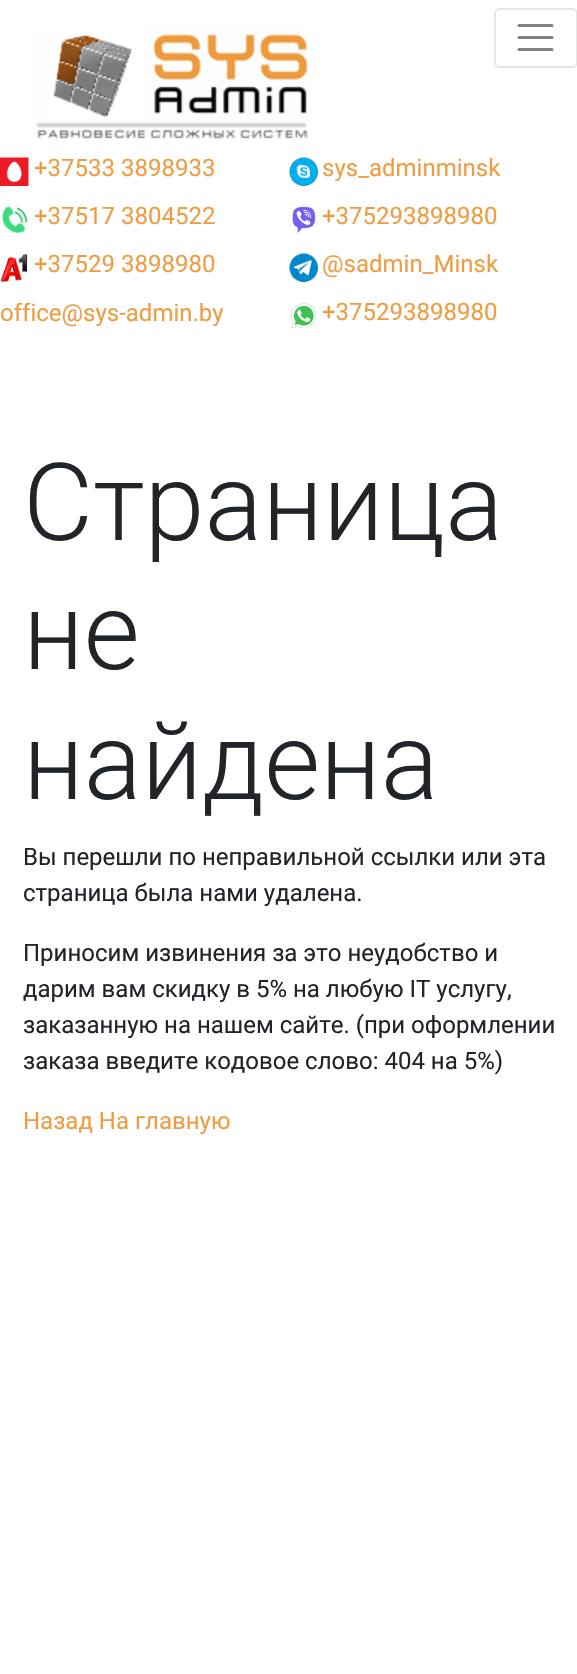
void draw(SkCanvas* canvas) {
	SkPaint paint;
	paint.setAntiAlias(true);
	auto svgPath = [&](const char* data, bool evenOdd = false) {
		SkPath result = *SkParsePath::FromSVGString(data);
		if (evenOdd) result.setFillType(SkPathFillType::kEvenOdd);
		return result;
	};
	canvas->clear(0xffffffff);
	paint.setStroke(true);
	paint.setStrokeWidth(2);
	paint.setColor(0xffe6e6e6);
	canvas->drawRoundRect(SkRect::MakeXYWH(495, 9, 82, 58), 5, 5, paint);
	paint.setStrokeWidth(3);
	paint.setStrokeCap(SkPaint::kRound_Cap);
	paint.setColor(0xff808080);
	canvas->drawPath(svgPath("M519 25.5H552M519 37.5H552M519 49.5H552"), paint);
	canvas->drawImageRect(SkImages::DeferredFromEncodedData(SkData::MakeFromFileName("img1.png")), SkRect::MakeXYWH(36, 30, 273, 110), SkSamplingOptions());
	canvas->drawImageRect(SkImages::DeferredFromEncodedData(SkData::MakeFromFileName("img2.png")), SkRect::MakeXYWH(0, 157, 29, 29), SkSamplingOptions());
	SkFont f1(fontMgr->matchFamilyStyle("Roboto", SkFontStyle::Normal()), 24);
	f1.setSubpixel(true);
	paint.setStroke(false);
	paint.setColor(0xffef9c43);
	canvas->drawString("+37533 3898933", 34, 176, f1, paint);
	canvas->drawImageRect(SkImages::DeferredFromEncodedData(SkData::MakeFromFileName("img3.png")), SkRect::MakeXYWH(2, 206, 26, 28), SkSamplingOptions());
	canvas->drawString("+37517 3804522", 34, 224, f1, paint);
	canvas->drawImageRect(SkImages::DeferredFromEncodedData(SkData::MakeFromFileName("img4.png")), SkRect::MakeXYWH(0, 254, 28, 29), SkSamplingOptions());
	canvas->drawString("+37529 3898980", 34, 272, f1, paint);
	canvas->drawString("office@sys-admin.by", 0, 321, f1, paint);
	canvas->drawImageRect(SkImages::DeferredFromEncodedData(SkData::MakeFromFileName("img5.png")), SkRect::MakeXYWH(289, 157, 29, 29), SkSamplingOptions());
	canvas->drawString("sys_adminminsk", 322, 176, f1, paint);
	canvas->drawImageRect(SkImages::DeferredFromEncodedData(SkData::MakeFromFileName("img6.png")), SkRect::MakeXYWH(292, 206, 24, 27), SkSamplingOptions());
	canvas->drawString("+375293898980", 322, 224, f1, paint);
	canvas->drawImageRect(SkImages::DeferredFromEncodedData(SkData::MakeFromFileName("img7.png")), SkRect::MakeXYWH(289, 253, 29, 29), SkSamplingOptions());
	canvas->drawString("@sadmin_Minsk", 322, 272, f1, paint);
	canvas->drawImageRect(SkImages::DeferredFromEncodedData(SkData::MakeFromFileName("img8.png")), SkRect::MakeXYWH(291, 303, 26, 26), SkSamplingOptions());
	canvas->drawString("+375293898980", 322, 320, f1, paint);
	SkFont f2(fontMgr->matchFamilyStyle("Roboto", SkFontStyle(300, SkFontStyle::kNormal_Width, SkFontStyle::kUpright_Slant)), 108);
	f2.setSubpixel(true);
	paint.setColor(0xff212529);
	canvas->drawString("Страница", 23, 540, f2, paint);
	canvas->drawString("не", 23, 669, f2, paint);
	canvas->drawString("найдена", 23, 799, f2, paint);
	canvas->drawString("Вы перешли по неправильной ссылки или эта", 23, 865, f1, paint);
	canvas->drawString("страница была нами удалена.", 23, 901, f1, paint);
	canvas->drawString("Приносим извинения за это неудобство и", 23, 961, f1, paint);
	canvas->drawString("дарим вам скидку в 5% на любую IT услугу,", 23, 997, f1, paint);
	canvas->drawString("заказанную на нашем сайте. (при оформлении", 23, 1033, f1, paint);
	canvas->drawString("заказа введите кодовое слово: 404 на 5%)", 23, 1069, f1, paint);
	paint.setColor(0xffef9c43);
	canvas->drawString("Назад На главную", 23, 1129, f1, paint);
}
